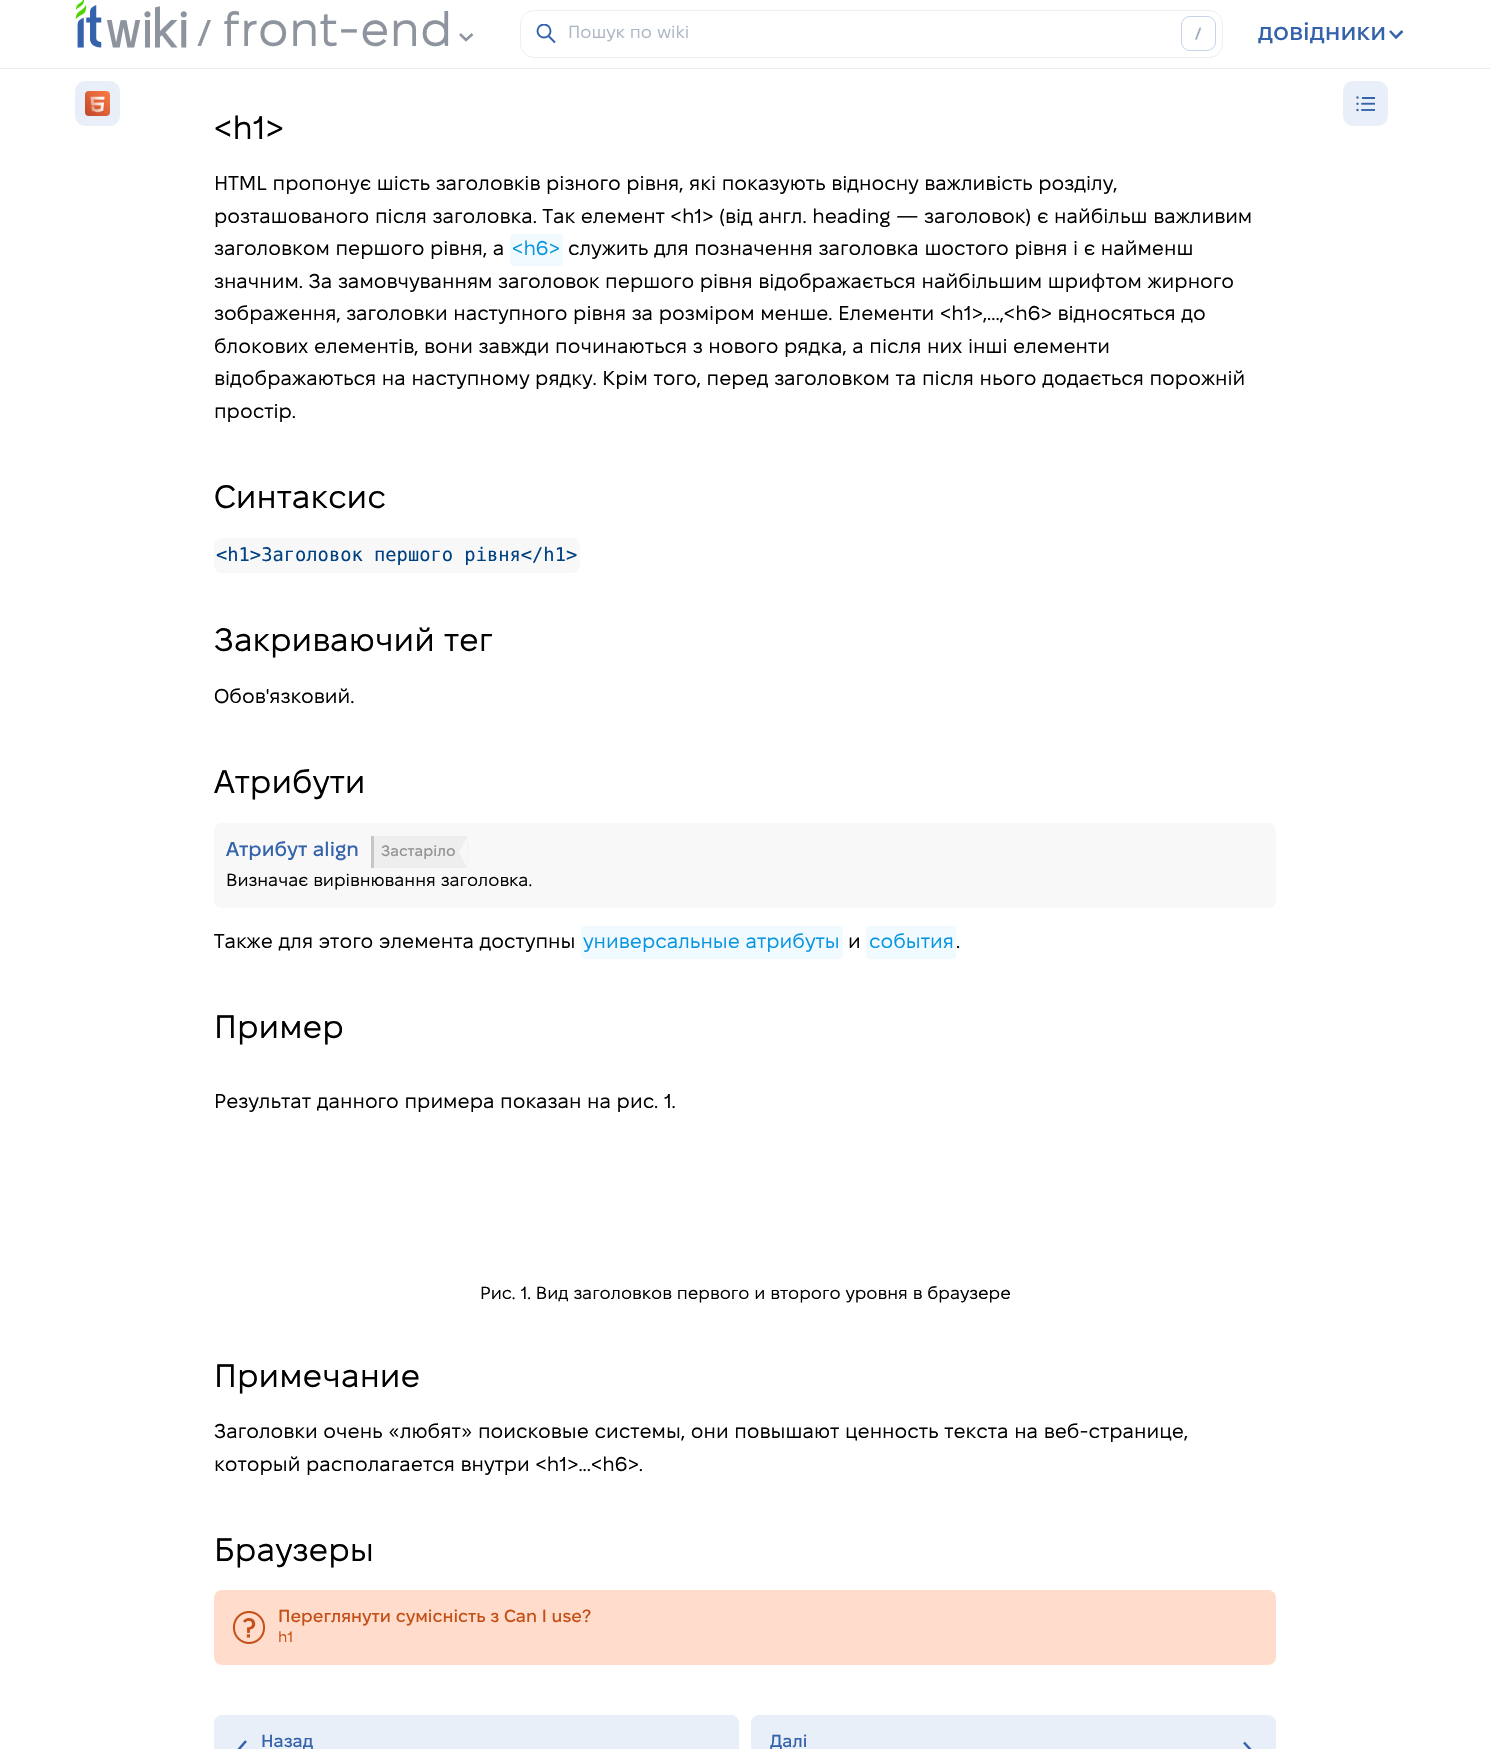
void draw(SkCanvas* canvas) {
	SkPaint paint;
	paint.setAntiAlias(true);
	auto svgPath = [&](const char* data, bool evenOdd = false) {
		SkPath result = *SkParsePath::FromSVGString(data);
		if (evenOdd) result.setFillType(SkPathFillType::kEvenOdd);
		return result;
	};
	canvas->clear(0xffffffff);
	paint.setColor(0xffe8eaec);
	canvas->drawRect(SkRect::MakeXYWH(0, 68, 1490, 1), paint);
	canvas->drawImageRect(SkImages::DeferredFromEncodedData(SkData::MakeFromFileName("img1.png")), SkRect::MakeXYWH(75, 0, 112, 48), SkSamplingOptions());
	paint.setColor(0xff8d949e);
	canvas->drawPath(svgPath("M197.5 46L207.5 20H211L201 46Z", true), paint);
	SkFont f1(fontMgr->matchFamilyStyle("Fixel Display", SkFontStyle::Normal()), 48.75);
	f1.setSubpixel(true);
	canvas->drawString("front-end", 223, 46, f1, paint);
	paint.setStroke(true);
	paint.setStrokeWidth(2.5);
	canvas->drawPath(svgPath("M460 34L466 40L472.5 34"), paint);
	paint.setStrokeWidth(1);
	paint.setColor(0xffc6d3e9);
	canvas->drawRoundRect(SkRect::MakeXYWH(1181.5, 16.5, 34, 34), 8.5, 8.5, paint);
	paint.setColor(0xffeeeff1);
	canvas->drawRoundRect(SkRect::MakeXYWH(520.5, 10.5, 702, 47), 13.5, 13.5, paint);
	canvas->save();
	canvas->clipRect(SkRect::MakeXYWH(536, 24, 20, 20));
	paint.setStrokeWidth(1.9);
	paint.setColor(0xff3462ab);
	canvas->drawCircle(544, 31, 6.5, paint);
	canvas->restore();
	canvas->drawPath(svgPath("M548 35.5L555 42.5"), paint);
	SkFont f2(fontMgr->matchFamilyStyle("Fixel Display", SkFontStyle::Normal()), 17.5);
	f2.setSubpixel(true);
	paint.setStroke(false);
	paint.setColor(0xffacb6c5);
	canvas->drawString("Пошук по wiki", 568, 38, f2, paint);
	canvas->drawImageRect(SkImages::DeferredFromEncodedData(SkData::MakeFromFileName("img2.png")), SkRect::MakeXYWH(1195, 27, 6, 13), SkSamplingOptions());
	SkFont f3(fontMgr->matchFamilyStyle("Fixel Display", SkFontStyle(500, SkFontStyle::kNormal_Width, SkFontStyle::kUpright_Slant)), 25);
	f3.setSubpixel(true);
	paint.setColor(0xff3462ab);
	canvas->drawString("довідники", 1258, 40, f3, paint);
	paint.setStroke(true);
	paint.setStrokeWidth(2.5);
	canvas->drawPath(svgPath("M1390 31L1396 37.5L1402.5 31"), paint);
	paint.setStroke(false);
	paint.setColor(0xffe9eff9);
	canvas->drawRoundRect(SkRect::MakeXYWH(75, 81, 45, 45), 10, 10, paint);
	{
		const SkColor colors[] = {0xfffd7c48, 0xffbf4628};
		const float stops[] = {0, 1};
		const SkPoint ends[] = {{110, 91}, {85, 116}};
		paint.setShader(SkGradientShader::MakeLinear(ends, colors, stops, 2, SkTileMode::kClamp));
		paint.setAlpha(255);
	}
	canvas->drawRoundRect(SkRect::MakeXYWH(85, 91, 25, 25), 4, 4, paint);
	canvas->drawImageRect(SkImages::DeferredFromEncodedData(SkData::MakeFromFileName("img3.png")), SkRect::MakeXYWH(90, 96, 15, 17), SkSamplingOptions());
	paint.setShader(nullptr);
	paint.setColor(0xffe9eff9);
	canvas->drawRoundRect(SkRect::MakeXYWH(1343, 81, 45, 45), 10, 10, paint);
	canvas->drawImageRect(SkImages::DeferredFromEncodedData(SkData::MakeFromFileName("img4.png")), SkRect::MakeXYWH(1356, 96, 19, 16), SkSamplingOptions());
	SkFont f4(fontMgr->matchFamilyStyle("Fixel Display", SkFontStyle::Normal()), 32.5);
	f4.setSubpixel(true);
	paint.setColor(0xff000000);
	canvas->drawString("<h1>", 214, 139, f4, paint);
	SkFont f5(fontMgr->matchFamilyStyle("Fixel Display", SkFontStyle::Normal()), 20);
	f5.setSubpixel(true);
	canvas->drawString("HTML пропонує шість заголовків різного рівня, які показують відносну важливість розділу,", 214, 190, f5, paint);
	canvas->drawString("розташованого після заголовка. Так елемент <h1> (від англ. heading — заголовок) є найбільш важливим", 214, 223, f5, paint);
	canvas->drawString("заголовком першого рівня, а", 214, 255, f5, paint);
	paint.setColor(0xfff1fafe);
	canvas->drawRoundRect(SkRect::MakeXYWH(510, 234, 53, 32), 4, 4, paint);
	paint.setColor(0xff0795e2);
	canvas->drawString("<h6>", 512, 255, f5, paint);
	paint.setColor(0xff000000);
	canvas->drawString("служить для позначення заголовка шостого рівня і є найменш", 568, 255, f5, paint);
	canvas->drawString("значним. За замовчуванням заголовок першого рівня відображається найбільшим шрифтом жирного", 214, 288, f5, paint);
	canvas->drawString("зображення, заголовки наступного рівня за розміром менше. Елементи <h1>,...,<h6> відносяться до", 214, 320, f5, paint);
	canvas->drawString("блокових елементів, вони завжди починаються з нового рядка, а після них інші елементи", 214, 353, f5, paint);
	canvas->drawString("відображаються на наступному рядку. Крім того, перед заголовком та після нього додається порожній", 214, 385, f5, paint);
	canvas->drawString("простір.", 214, 418, f5, paint);
	canvas->drawString("Синтаксис", 214, 508, f4, paint);
	paint.setColor(0xfff8f8f8);
	canvas->drawRoundRect(SkRect::MakeXYWH(214, 538, 366, 35), 8, 8, paint);
	SkFont f6(fontMgr->matchFamilyStyle("DejaVu Sans Mono", SkFontStyle::Normal()), 18.75);
	f6.setSubpixel(true);
	paint.setColor(0xff004182);
	canvas->drawString("<h1>Заголовок першого рівня</h1>", 216, 561, f6, paint);
	paint.setColor(0xff000000);
	canvas->drawString("Закриваючий тег", 214, 651, f4, paint);
	canvas->drawString("Обов'язковий.", 214, 703, f5, paint);
	canvas->drawString("Атрибути", 214, 793, f4, paint);
	paint.setColor(0xfff8f8f8);
	canvas->drawRoundRect(SkRect::MakeXYWH(214, 823, 1062, 85), 8, 8, paint);
	SkFont f7(fontMgr->matchFamilyStyle("Fixel Display", SkFontStyle(500, SkFontStyle::kNormal_Width, SkFontStyle::kUpright_Slant)), 20);
	f7.setSubpixel(true);
	paint.setColor(0xff3462ab);
	canvas->drawString("Атрибут align", 226, 856, f7, paint);
	paint.setColor(0xffeeeeee);
	canvas->drawRect(SkRect::MakeXYWH(374, 836, 94, 32), paint);
	paint.setColor(0xffc6c6c6);
	canvas->drawRect(SkRect::MakeXYWH(371, 836, 3, 32), paint);
	SkFont f8(fontMgr->matchFamilyStyle("Fixel Display", SkFontStyle(500, SkFontStyle::kNormal_Width, SkFontStyle::kUpright_Slant)), 15);
	f8.setSubpixel(true);
	paint.setColor(0xff949494);
	canvas->drawString("Застаріло", 381, 856, f8, paint);
	paint.setColor(0xfff8f8f8);
	canvas->drawPath(svgPath("M467.5 836V869L459 852.5Z"), paint);
	paint.setColor(0xff000000);
	canvas->drawString("Визначає вирівнювання заголовка.", 226, 886, f2, paint);
	canvas->drawString("Также для этого элемента доступны", 214, 948, f5, paint);
	paint.setColor(0xfff1fafe);
	canvas->drawRoundRect(SkRect::MakeXYWH(581, 926, 262, 33), 4, 4, paint);
	paint.setColor(0xff0795e2);
	canvas->drawString("универсальные атрибуты", 583, 948, f5, paint);
	paint.setColor(0xff000000);
	canvas->drawString("и", 848, 948, f5, paint);
	paint.setColor(0xfff1fafe);
	canvas->drawRoundRect(SkRect::MakeXYWH(866, 926, 90, 33), 4, 4, paint);
	paint.setColor(0xff0795e2);
	canvas->drawString("события", 869, 948, f5, paint);
	paint.setColor(0xff000000);
	canvas->drawString(".", 956, 948, f5, paint);
	canvas->drawString("Пример", 214, 1038, f4, paint);
	canvas->drawString("Результат данного примера показан на рис. 1.", 214, 1108, f5, paint);
	canvas->drawString("Рис. 1. Вид заголовков первого и второго уровня в браузере", 480, 1299, f2, paint);
	canvas->drawString("Примечание", 214, 1387, f4, paint);
	canvas->drawString("Заголовки очень «любят» поисковые системы, они повышают ценность текста на веб-странице,", 214, 1438, f5, paint);
	canvas->drawString("который располагается внутри <h1>...<h6>.", 214, 1471, f5, paint);
	canvas->drawString("Браузеры", 214, 1561, f4, paint);
	paint.setColor(0xffffdccb);
	canvas->drawRoundRect(SkRect::MakeXYWH(214, 1590, 1062, 75), 8, 8, paint);
	canvas->drawImageRect(SkImages::DeferredFromEncodedData(SkData::MakeFromFileName("img5.png")), SkRect::MakeXYWH(233, 1611, 32, 33), SkSamplingOptions());
	SkFont f9(fontMgr->matchFamilyStyle("Fixel Display", SkFontStyle(500, SkFontStyle::kNormal_Width, SkFontStyle::kUpright_Slant)), 17.5);
	f9.setSubpixel(true);
	paint.setColor(0xffc55017);
	canvas->drawString("Переглянути сумісність з Can I use?", 278, 1622, f9, paint);
	SkFont f10(fontMgr->matchFamilyStyle("Fixel Display", SkFontStyle::Normal()), 15);
	f10.setSubpixel(true);
	canvas->drawString("h1", 278, 1642, f10, paint);
	paint.setColor(0xffe9eff9);
	canvas->drawRoundRect(SkRect::MakeXYWH(214, 1715, 525, 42), 8, 8, paint);
	paint.setStroke(true);
	paint.setColor(0xff3462ab);
	canvas->drawPath(svgPath("M246 1741L236 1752.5L246 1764"), paint);
	paint.setStroke(false);
	canvas->drawString("Назад", 261, 1747, f9, paint);
	paint.setColor(0xffe9eff9);
	canvas->drawRoundRect(SkRect::MakeXYWH(751, 1715, 525, 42), 8, 8, paint);
	paint.setColor(0xff3462ab);
	canvas->drawString("Далі", 770, 1747, f9, paint);
	paint.setStroke(true);
	canvas->drawPath(svgPath("M1244 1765L1254 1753.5L1244 1742.5"), paint);
}
